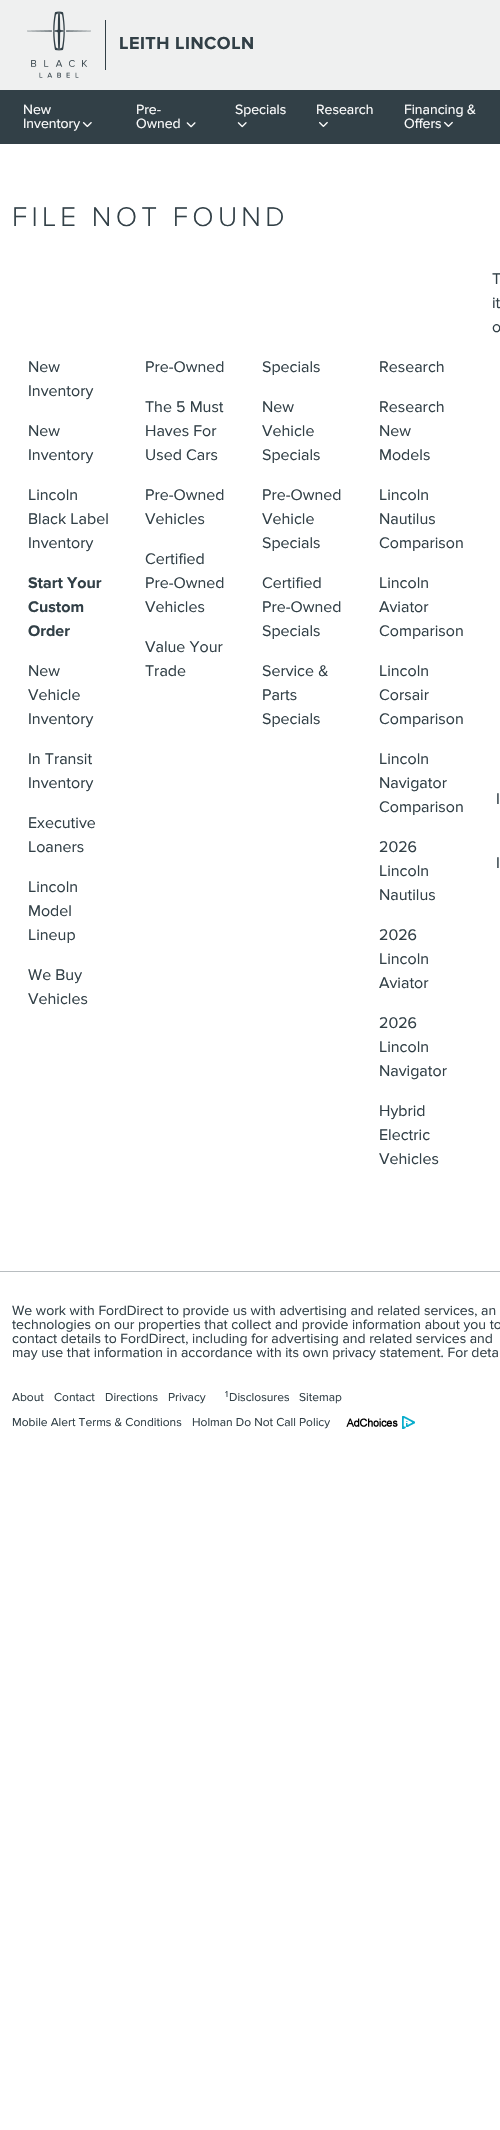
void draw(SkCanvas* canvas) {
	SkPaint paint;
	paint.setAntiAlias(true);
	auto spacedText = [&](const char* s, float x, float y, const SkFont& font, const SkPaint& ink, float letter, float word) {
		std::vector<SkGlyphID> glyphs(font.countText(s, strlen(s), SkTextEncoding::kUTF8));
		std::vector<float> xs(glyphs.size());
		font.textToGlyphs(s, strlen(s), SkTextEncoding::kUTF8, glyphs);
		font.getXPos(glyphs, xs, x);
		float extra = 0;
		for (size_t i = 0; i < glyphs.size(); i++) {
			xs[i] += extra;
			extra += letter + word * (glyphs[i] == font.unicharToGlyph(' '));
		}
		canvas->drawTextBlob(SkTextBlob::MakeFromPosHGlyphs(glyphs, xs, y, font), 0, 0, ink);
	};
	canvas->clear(0xffffffff);
	paint.setColor(0xffeff0f0);
	canvas->drawRect(SkRect::MakeXYWH(0, 0, 500, 90), paint);
	canvas->drawImageRect(SkImages::DeferredFromEncodedData(SkData::MakeFromFileName("img1.png")), SkRect::MakeXYWH(27, 11, 64, 67), SkSamplingOptions());
	paint.setColor(0xff324047);
	canvas->drawRect(SkRect::MakeXYWH(105, 20, 1, 50), paint);
	SkFont f1(fontMgr->matchFamilyStyle("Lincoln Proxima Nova", SkFontStyle::Bold()), 18);
	f1.setSubpixel(true);
	spacedText("LEITH LINCOLN", 119, 49, f1, paint, 0.5, 0);
	canvas->drawRect(SkRect::MakeXYWH(0, 90, 500, 54), paint);
	SkFont f2(fontMgr->matchFamilyStyle("Lincoln Proxima Nova", SkFontStyle::Normal()), 14);
	f2.setSubpixel(true);
	paint.setColor(0xffffffff);
	canvas->drawString("New", 23, 114, f2, paint);
	canvas->drawString("Inventory", 23, 128, f2, paint);
	canvas->drawImageRect(SkImages::DeferredFromEncodedData(SkData::MakeFromFileName("img2.png")), SkRect::MakeXYWH(82, 122, 10, 6), SkSamplingOptions());
	canvas->drawString("Pre-", 136, 114, f2, paint);
	canvas->drawString("Owned", 136, 128, f2, paint);
	canvas->drawImageRect(SkImages::DeferredFromEncodedData(SkData::MakeFromFileName("img3.png")), SkRect::MakeXYWH(186, 122, 10, 6), SkSamplingOptions());
	canvas->drawString("Specials", 235, 114, f2, paint);
	canvas->drawImageRect(SkImages::DeferredFromEncodedData(SkData::MakeFromFileName("img4.png")), SkRect::MakeXYWH(237, 122, 10, 6), SkSamplingOptions());
	canvas->drawString("Research", 316, 114, f2, paint);
	canvas->drawImageRect(SkImages::DeferredFromEncodedData(SkData::MakeFromFileName("img5.png")), SkRect::MakeXYWH(319, 121, 9, 6), SkSamplingOptions());
	canvas->drawString("Financing &", 404, 114, f2, paint);
	canvas->drawString("Offers", 404, 128, f2, paint);
	canvas->drawImageRect(SkImages::DeferredFromEncodedData(SkData::MakeFromFileName("img6.png")), SkRect::MakeXYWH(444, 121, 9, 6), SkSamplingOptions());
	SkFont f3(fontMgr->matchFamilyStyle("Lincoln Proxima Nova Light", SkFontStyle(300, SkFontStyle::kNormal_Width, SkFontStyle::kUpright_Slant)), 28);
	f3.setSubpixel(true);
	paint.setColor(0xff324047);
	spacedText("FILE NOT FOUND", 12, 226, f3, paint, 4.25, 0);
	SkFont f4(fontMgr->matchFamilyStyle("Lincoln Proxima Nova", SkFontStyle::Normal()), 16);
	f4.setSubpixel(true);
	canvas->drawString("T", 492, 284, f4, paint);
	canvas->drawString("it", 492, 308, f4, paint);
	canvas->drawString("o", 492, 332, f4, paint);
	canvas->drawString("New", 28, 372, f4, paint);
	canvas->drawString("Inventory", 28, 396, f4, paint);
	canvas->drawString("New", 28, 436, f4, paint);
	canvas->drawString("Inventory", 28, 460, f4, paint);
	canvas->drawString("Lincoln", 28, 500, f4, paint);
	canvas->drawString("Black Label", 28, 524, f4, paint);
	canvas->drawString("Inventory", 28, 548, f4, paint);
	SkFont f5(fontMgr->matchFamilyStyle("Lincoln Proxima Nova", SkFontStyle::Bold()), 16);
	f5.setSubpixel(true);
	canvas->drawString("Start Your", 28, 588, f5, paint);
	canvas->drawString("Custom", 28, 612, f5, paint);
	canvas->drawString("Order", 28, 636, f5, paint);
	canvas->drawString("New", 28, 676, f4, paint);
	canvas->drawString("Vehicle", 28, 700, f4, paint);
	canvas->drawString("Inventory", 28, 724, f4, paint);
	canvas->drawString("In Transit", 28, 764, f4, paint);
	canvas->drawString("Inventory", 28, 788, f4, paint);
	canvas->drawString("Executive", 28, 828, f4, paint);
	canvas->drawString("Loaners", 28, 852, f4, paint);
	canvas->drawString("Lincoln", 28, 892, f4, paint);
	canvas->drawString("Model", 28, 916, f4, paint);
	canvas->drawString("Lineup", 28, 940, f4, paint);
	canvas->drawString("We Buy", 28, 980, f4, paint);
	canvas->drawString("Vehicles", 28, 1004, f4, paint);
	canvas->drawString("Pre-Owned", 145, 372, f4, paint);
	canvas->drawString("The 5 Must", 145, 412, f4, paint);
	canvas->drawString("Haves For", 145, 436, f4, paint);
	canvas->drawString("Used Cars", 145, 460, f4, paint);
	canvas->drawString("Pre-Owned", 145, 500, f4, paint);
	canvas->drawString("Vehicles", 145, 524, f4, paint);
	canvas->drawString("Certified", 145, 564, f4, paint);
	canvas->drawString("Pre-Owned", 145, 588, f4, paint);
	canvas->drawString("Vehicles", 145, 612, f4, paint);
	canvas->drawString("Value Your", 145, 652, f4, paint);
	canvas->drawString("Trade", 145, 676, f4, paint);
	canvas->drawString("Specials", 262, 372, f4, paint);
	canvas->drawString("New", 262, 412, f4, paint);
	canvas->drawString("Vehicle", 262, 436, f4, paint);
	canvas->drawString("Specials", 262, 460, f4, paint);
	canvas->drawString("Pre-Owned", 262, 500, f4, paint);
	canvas->drawString("Vehicle", 262, 524, f4, paint);
	canvas->drawString("Specials", 262, 548, f4, paint);
	canvas->drawString("Certified", 262, 588, f4, paint);
	canvas->drawString("Pre-Owned", 262, 612, f4, paint);
	canvas->drawString("Specials", 262, 636, f4, paint);
	canvas->drawString("Service &", 262, 676, f4, paint);
	canvas->drawString("Parts", 262, 700, f4, paint);
	canvas->drawString("Specials", 262, 724, f4, paint);
	canvas->drawString("Research", 379, 372, f4, paint);
	canvas->drawString("Research", 379, 412, f4, paint);
	canvas->drawString("New", 379, 436, f4, paint);
	canvas->drawString("Models", 379, 460, f4, paint);
	canvas->drawString("Lincoln", 379, 500, f4, paint);
	canvas->drawString("Nautilus", 379, 524, f4, paint);
	canvas->drawString("Comparison", 379, 548, f4, paint);
	canvas->drawString("Lincoln", 379, 588, f4, paint);
	canvas->drawString("Aviator", 379, 612, f4, paint);
	canvas->drawString("Comparison", 379, 636, f4, paint);
	canvas->drawString("Lincoln", 379, 676, f4, paint);
	canvas->drawString("Corsair", 379, 700, f4, paint);
	canvas->drawString("Comparison", 379, 724, f4, paint);
	canvas->drawString("Lincoln", 379, 764, f4, paint);
	canvas->drawString("Navigator", 379, 788, f4, paint);
	canvas->drawString("Comparison", 379, 812, f4, paint);
	canvas->drawString("2026", 379, 852, f4, paint);
	canvas->drawString("Lincoln", 379, 876, f4, paint);
	canvas->drawString("Nautilus", 379, 900, f4, paint);
	canvas->drawString("2026", 379, 940, f4, paint);
	canvas->drawString("Lincoln", 379, 964, f4, paint);
	canvas->drawString("Aviator", 379, 988, f4, paint);
	canvas->drawString("2026", 379, 1028, f4, paint);
	canvas->drawString("Lincoln", 379, 1052, f4, paint);
	canvas->drawString("Navigator", 379, 1076, f4, paint);
	canvas->drawString("Hybrid", 379, 1116, f4, paint);
	canvas->drawString("Electric", 379, 1140, f4, paint);
	canvas->drawString("Vehicles", 379, 1164, f4, paint);
	canvas->drawString("I", 496, 804, f4, paint);
	canvas->drawString("I", 496, 868, f4, paint);
	paint.setColor(0xffb8bdc0);
	canvas->drawRect(SkRect::MakeXYWH(0, 1271, 500, 1), paint);
	paint.setColor(0xff324047);
	canvas->drawString("We work with FordDirect to provide us with advertising and related services, an", 12, 1315, f2, paint);
	canvas->drawString("technologies on our properties that collect and provide information about you to", 12, 1329, f2, paint);
	canvas->drawString("contact details to FordDirect, including for advertising and related services and", 12, 1343, f2, paint);
	canvas->drawString("may use that information in accordance with its own privacy statement. For deta", 12, 1357, f2, paint);
	SkFont f6(fontMgr->matchFamilyStyle("Lincoln Proxima Nova", SkFontStyle::Normal()), 12);
	f6.setSubpixel(true);
	canvas->drawString("About", 12, 1401, f6, paint);
	canvas->drawString("Contact", 54, 1401, f6, paint);
	canvas->drawString("Directions", 105, 1401, f6, paint);
	canvas->drawString("Privacy", 168, 1401, f6, paint);
	SkFont f7(fontMgr->matchFamilyStyle("Lincoln Proxima Nova", SkFontStyle::Normal()), 9);
	f7.setSubpixel(true);
	canvas->drawString("1", 225, 1397, f7, paint);
	canvas->drawString("Disclosures", 229, 1401, f6, paint);
	canvas->drawString("Sitemap", 299, 1401, f6, paint);
	canvas->drawString("Mobile Alert Terms & Conditions", 12, 1426, f6, paint);
	canvas->drawString("Holman Do Not Call Policy", 192, 1426, f6, paint);
	canvas->drawImageRect(SkImages::DeferredFromEncodedData(SkData::MakeFromFileName("img7.png")), SkRect::MakeXYWH(346, 1416, 69, 13), SkSamplingOptions());
}
